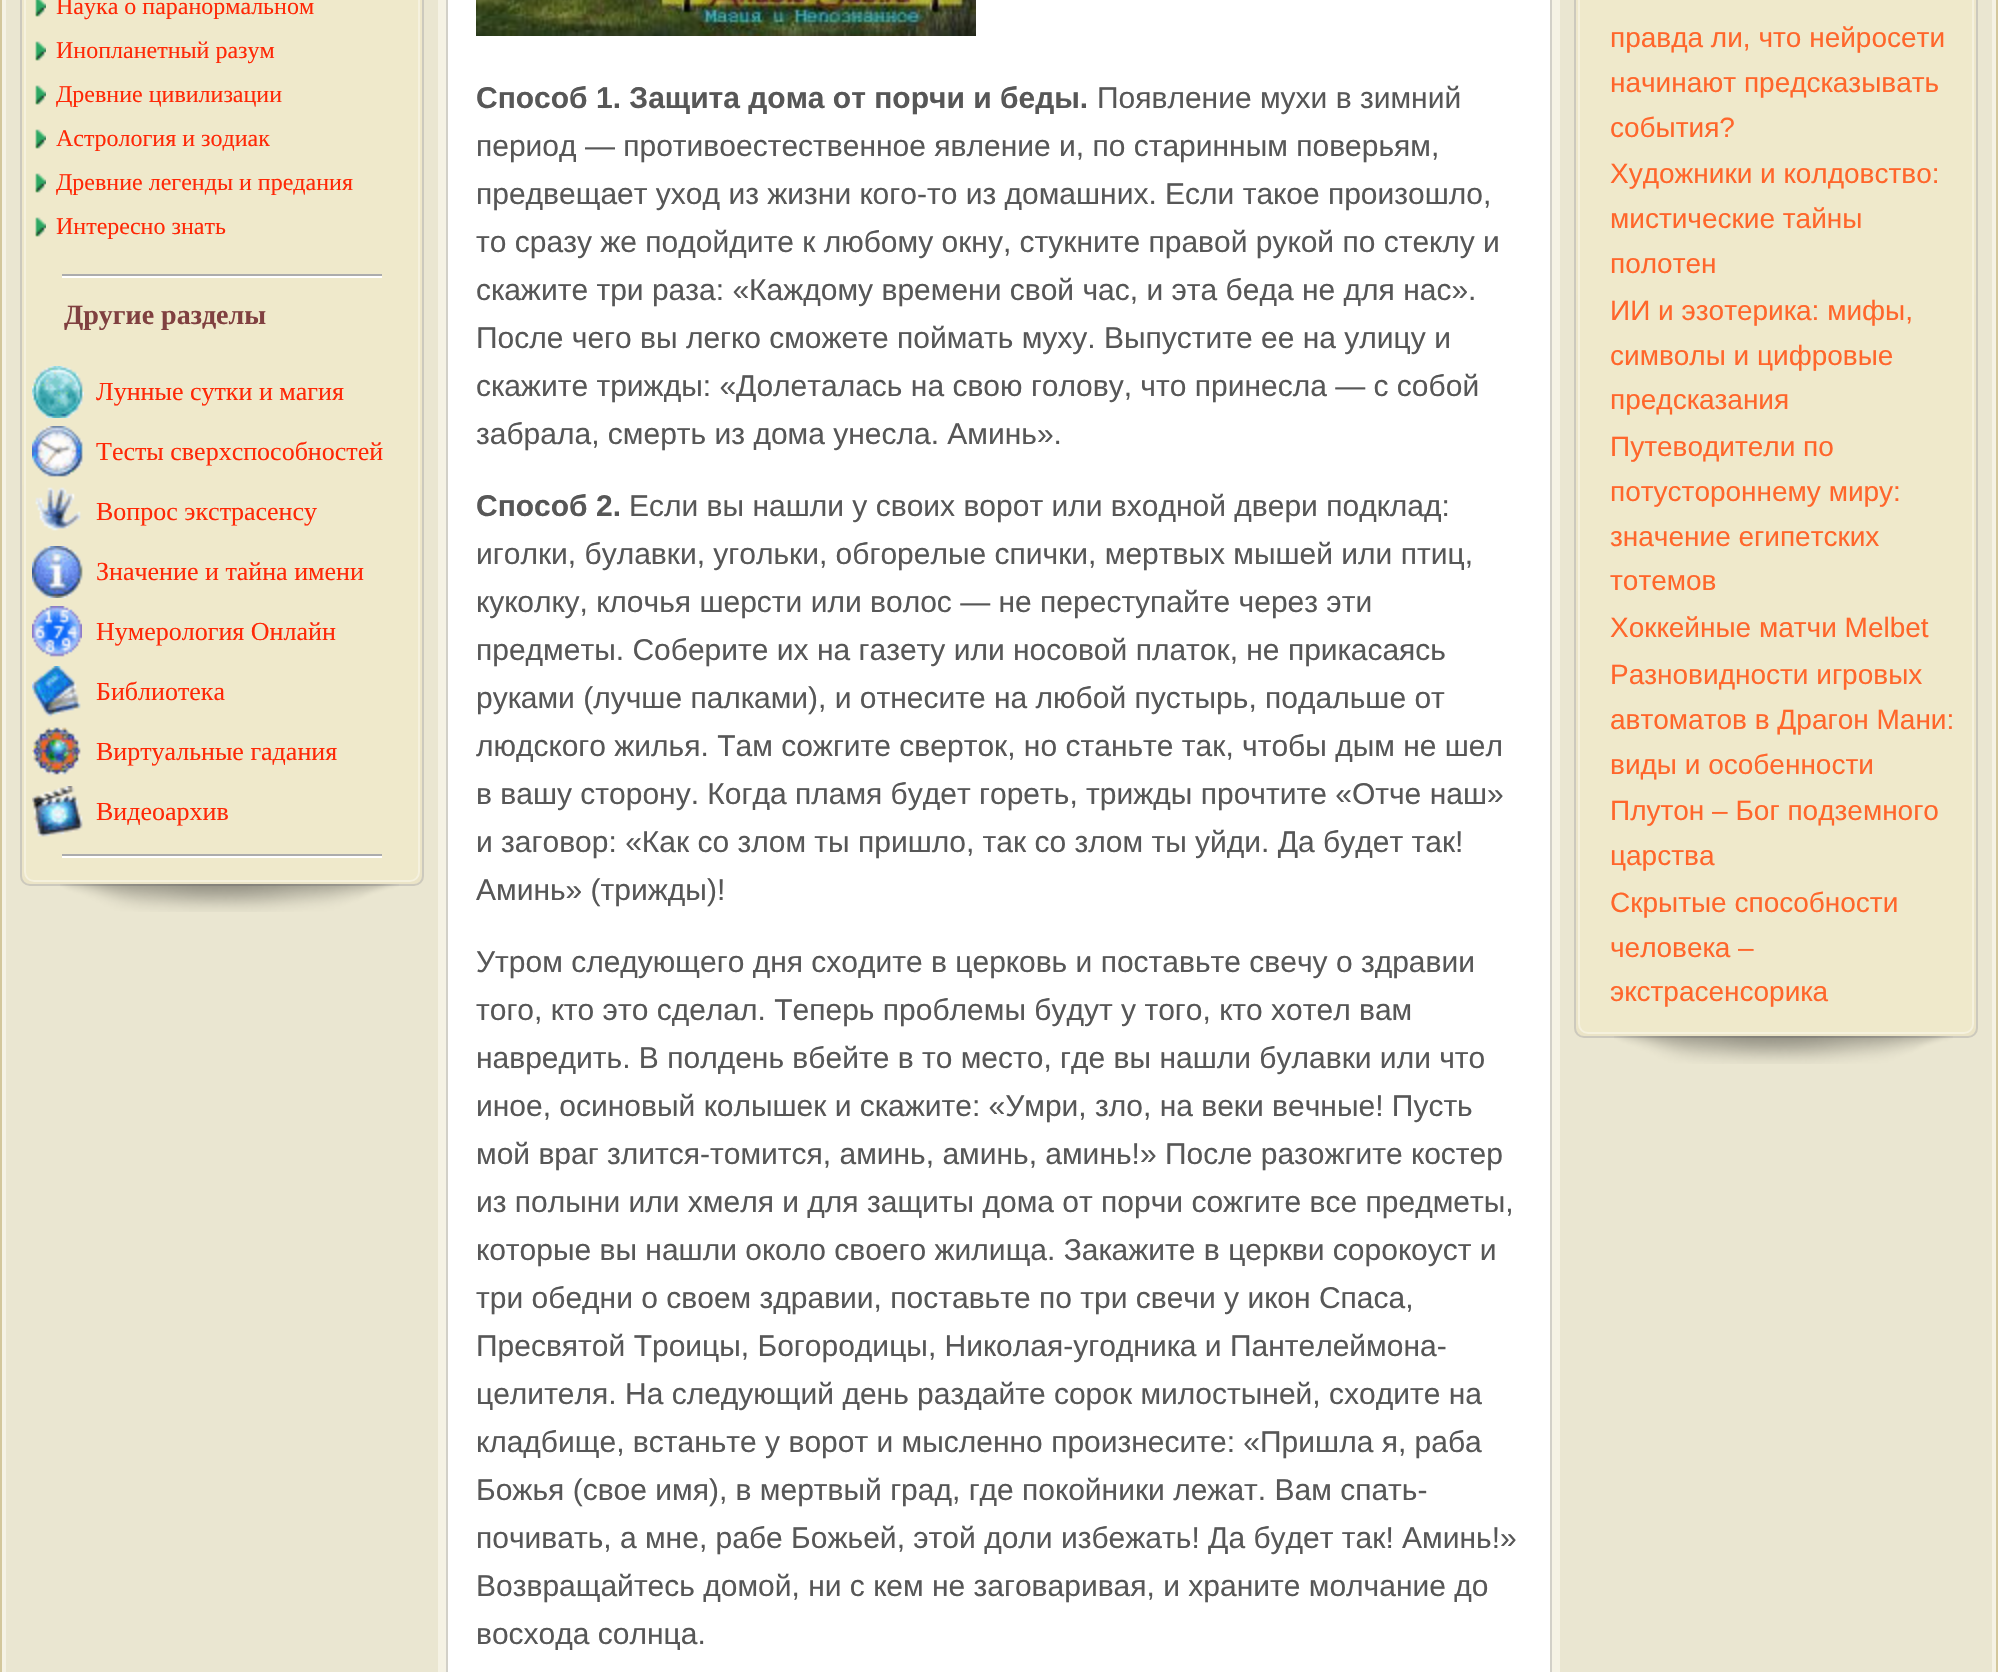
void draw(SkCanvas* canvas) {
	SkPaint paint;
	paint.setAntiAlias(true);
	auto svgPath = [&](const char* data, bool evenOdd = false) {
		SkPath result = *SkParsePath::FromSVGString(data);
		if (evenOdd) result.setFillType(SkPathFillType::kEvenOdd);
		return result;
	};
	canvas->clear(0xfff5f2e4);
	paint.setColor(0xffd3c79c);
	canvas->drawRect(SkRect::MakeXYWH(1996, 0, 2, 1672), paint);
	canvas->drawRect(SkRect::MakeXYWH(0, 0, 2, 1672), paint);
	paint.setColor(0xffeae6d1);
	canvas->drawRect(SkRect::MakeXYWH(6, 0, 432, 1672), paint);
	canvas->save();
	canvas->clipPath(svgPath("M30-448H414C419.5-448 424-443.5 424-438V876C424 881.5 419.5 886 414 886H30C24.5 886 20 881.5 20 876V-438C20-443.5 24.5-448 30-448Z"), true);
	{
		const SkColor colors[] = {0xfff0e9cb, 0xffebe4c7};
		const float stops[] = {0, 1};
		const SkPoint ends[] = {{222, -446}, {222, 884}};
		paint.setShader(SkGradientShader::MakeLinear(ends, colors, stops, 2, SkTileMode::kClamp));
		paint.setAlpha(255);
	}
	canvas->drawRect(SkRect::MakeXYWH(20, 0, 404, 884), paint);
	canvas->restore();
	paint.setStroke(true);
	paint.setStrokeWidth(2);
	paint.setShader(nullptr);
	paint.setColor(0xffccc9bd);
	canvas->drawRoundRect(SkRect::MakeXYWH(21, -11, 402, 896), 9, 9, paint);
	paint.setStroke(false);
	paint.setColor(0xffefe9cb);
	canvas->drawRoundRect(SkRect::MakeXYWH(25, -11, 394, 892), 9, 9, paint);
	paint.setStroke(true);
	paint.setColor(0xfff5f1de);
	canvas->drawRoundRect(SkRect::MakeXYWH(25, -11, 394, 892), 9, 9, paint);
	canvas->drawImageRect(SkImages::DeferredFromEncodedData(SkData::MakeFromFileName("img1.png")), SkRect::MakeXYWH(35, 0, 11, 17), SkSamplingOptions());
	SkFont f1(fontMgr->matchFamilyStyle("Liberation Serif", SkFontStyle::Normal()), 24);
	f1.setSubpixel(true);
	paint.setStroke(false);
	paint.setColor(0xffff2806);
	canvas->drawString("Наука о паранормальном", 56, 14, f1, paint);
	canvas->drawImageRect(SkImages::DeferredFromEncodedData(SkData::MakeFromFileName("img2.png")), SkRect::MakeXYWH(35, 41, 11, 20), SkSamplingOptions());
	canvas->drawString("Инопланетный разум", 56, 58, f1, paint);
	canvas->drawImageRect(SkImages::DeferredFromEncodedData(SkData::MakeFromFileName("img2.png")), SkRect::MakeXYWH(35, 85, 11, 20), SkSamplingOptions());
	canvas->drawString("Древние цивилизации", 56, 102, f1, paint);
	canvas->drawImageRect(SkImages::DeferredFromEncodedData(SkData::MakeFromFileName("img2.png")), SkRect::MakeXYWH(35, 129, 11, 20), SkSamplingOptions());
	canvas->drawString("Астрология и зодиак", 56, 146, f1, paint);
	canvas->drawImageRect(SkImages::DeferredFromEncodedData(SkData::MakeFromFileName("img2.png")), SkRect::MakeXYWH(35, 173, 11, 20), SkSamplingOptions());
	canvas->drawString("Древние легенды и предания", 56, 190, f1, paint);
	canvas->drawImageRect(SkImages::DeferredFromEncodedData(SkData::MakeFromFileName("img2.png")), SkRect::MakeXYWH(35, 217, 11, 20), SkSamplingOptions());
	canvas->drawString("Интересно знать", 56, 234, f1, paint);
	paint.setColor(0xffacacac);
	canvas->drawRect(SkRect::MakeXYWH(62, 274, 320, 2), paint);
	paint.setColor(0xffffffff);
	canvas->drawRect(SkRect::MakeXYWH(62, 276, 320, 2), paint);
	SkFont f2(fontMgr->matchFamilyStyle("Liberation Serif", SkFontStyle::Bold()), 28);
	f2.setSubpixel(true);
	paint.setColor(0xff804040);
	canvas->drawString("Другие разделы", 64, 324, f2, paint);
	canvas->drawImageRect(SkImages::DeferredFromEncodedData(SkData::MakeFromFileName("img3.png")), SkRect::MakeXYWH(32, 366, 52, 52), SkSamplingOptions());
	SkFont f3(fontMgr->matchFamilyStyle("Liberation Serif", SkFontStyle::Normal()), 26);
	f3.setSubpixel(true);
	paint.setColor(0xffff2806);
	canvas->drawString("Лунные сутки и магия", 96, 400, f3, paint);
	canvas->drawImageRect(SkImages::DeferredFromEncodedData(SkData::MakeFromFileName("img4.png")), SkRect::MakeXYWH(32, 426, 51, 51), SkSamplingOptions());
	canvas->drawString("Тесты сверхспособностей", 96, 460, f3, paint);
	canvas->drawImageRect(SkImages::DeferredFromEncodedData(SkData::MakeFromFileName("img5.png")), SkRect::MakeXYWH(35, 487, 46, 44), SkSamplingOptions());
	canvas->drawString("Вопрос экстрасенсу", 96, 520, f3, paint);
	canvas->drawImageRect(SkImages::DeferredFromEncodedData(SkData::MakeFromFileName("img6.png")), SkRect::MakeXYWH(32, 546, 51, 52), SkSamplingOptions());
	canvas->drawString("Значение и тайна имени", 96, 580, f3, paint);
	canvas->drawImageRect(SkImages::DeferredFromEncodedData(SkData::MakeFromFileName("img7.png")), SkRect::MakeXYWH(32, 606, 50, 51), SkSamplingOptions());
	canvas->drawString("Нумерология Онлайн", 96, 640, f3, paint);
	canvas->drawImageRect(SkImages::DeferredFromEncodedData(SkData::MakeFromFileName("img8.png")), SkRect::MakeXYWH(32, 666, 49, 51), SkSamplingOptions());
	canvas->drawString("Библиотека", 96, 700, f3, paint);
	canvas->drawImageRect(SkImages::DeferredFromEncodedData(SkData::MakeFromFileName("img9.png")), SkRect::MakeXYWH(32, 727, 49, 48), SkSamplingOptions());
	canvas->drawString("Виртуальные гадания", 96, 760, f3, paint);
	canvas->drawImageRect(SkImages::DeferredFromEncodedData(SkData::MakeFromFileName("img10.png")), SkRect::MakeXYWH(32, 786, 51, 51), SkSamplingOptions());
	canvas->drawString("Видеоархив", 96, 820, f3, paint);
	paint.setColor(0xffacacac);
	canvas->drawRect(SkRect::MakeXYWH(62, 854, 320, 2), paint);
	paint.setColor(0xffffffff);
	canvas->drawRect(SkRect::MakeXYWH(62, 856, 320, 2), paint);
	canvas->drawImageRect(SkImages::DeferredFromEncodedData(SkData::MakeFromFileName("img11.png")), SkRect::MakeXYWH(60, 884, 339, 28), SkSamplingOptions());
	canvas->drawRect(SkRect::MakeXYWH(447, -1, 1104, 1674), paint);
	paint.setStroke(true);
	paint.setColor(0xffd2d0c8);
	canvas->drawRect(SkRect::MakeXYWH(447, -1, 1104, 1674), paint);
	canvas->drawImageRect(SkImages::DeferredFromEncodedData(SkData::MakeFromFileName("img12.png")), SkRect::MakeXYWH(476, 0, 500, 36), SkSamplingOptions());
	SkFont f4(fontMgr->matchFamilyStyle("Liberation Sans", SkFontStyle::Bold()), 30);
	f4.setSubpixel(true);
	paint.setStroke(false);
	paint.setColor(0xff575757);
	canvas->drawString("Способ 1. Защита дома от порчи и беды.", 476, 108, f4, paint);
	SkFont f5(fontMgr->matchFamilyStyle("Liberation Sans", SkFontStyle::Normal()), 30);
	f5.setSubpixel(true);
	canvas->drawString("Появление мухи в зимний", 1097, 108, f5, paint);
	canvas->drawString("период — противоестественное явление и, по старинным поверьям,", 476, 156, f5, paint);
	canvas->drawString("предвещает уход из жизни кого-то из домашних. Если такое произошло,", 476, 204, f5, paint);
	canvas->drawString("то сразу же подойдите к любому окну, стукните правой рукой по стеклу и", 476, 252, f5, paint);
	canvas->drawString("скажите три раза: «Каждому времени свой час, и эта беда не для нас».", 476, 300, f5, paint);
	canvas->drawString("После чего вы легко сможете поймать муху. Выпустите ее на улицу и", 476, 348, f5, paint);
	canvas->drawString("скажите трижды: «Долеталась на свою голову, что принесла — с собой", 476, 396, f5, paint);
	canvas->drawString("забрала, смерть из дома унесла. Аминь».", 476, 444, f5, paint);
	canvas->drawString("Способ 2.", 476, 516, f4, paint);
	canvas->drawString("Если вы нашли у своих ворот или входной двери подклад:", 629, 516, f5, paint);
	canvas->drawString("иголки, булавки, угольки, обгорелые спички, мертвых мышей или птиц,", 476, 564, f5, paint);
	canvas->drawString("куколку, клочья шерсти или волос — не переступайте через эти", 476, 612, f5, paint);
	canvas->drawString("предметы. Соберите их на газету или носовой платок, не прикасаясь", 476, 660, f5, paint);
	canvas->drawString("руками (лучше палками), и отнесите на любой пустырь, подальше от", 476, 708, f5, paint);
	canvas->drawString("людского жилья. Там сожгите сверток, но станьте так, чтобы дым не шел", 476, 756, f5, paint);
	canvas->drawString("в вашу сторону. Когда пламя будет гореть, трижды прочтите «Отче наш»", 476, 804, f5, paint);
	canvas->drawString("и заговор: «Как со злом ты пришло, так со злом ты уйди. Да будет так!", 476, 852, f5, paint);
	canvas->drawString("Аминь» (трижды)!", 476, 900, f5, paint);
	canvas->drawString("Утром следующего дня сходите в церковь и поставьте свечу о здравии", 476, 972, f5, paint);
	canvas->drawString("того, кто это сделал. Теперь проблемы будут у того, кто хотел вам", 476, 1020, f5, paint);
	canvas->drawString("навредить. В полдень вбейте в то место, где вы нашли булавки или что", 476, 1068, f5, paint);
	canvas->drawString("иное, осиновый колышек и скажите: «Умри, зло, на веки вечные! Пусть", 476, 1116, f5, paint);
	canvas->drawString("мой враг злится-томится, аминь, аминь, аминь!» После разожгите костер", 476, 1164, f5, paint);
	canvas->drawString("из полыни или хмеля и для защиты дома от порчи сожгите все предметы,", 476, 1212, f5, paint);
	canvas->drawString("которые вы нашли около своего жилища. Закажите в церкви сорокоуст и", 476, 1260, f5, paint);
	canvas->drawString("три обедни о своем здравии, поставьте по три свечи у икон Спаса,", 476, 1308, f5, paint);
	canvas->drawString("Пресвятой Троицы, Богородицы, Николая-угодника и Пантелеймона-", 476, 1356, f5, paint);
	canvas->drawString("целителя. На следующий день раздайте сорок милостыней, сходите на", 476, 1404, f5, paint);
	canvas->drawString("кладбище, встаньте у ворот и мысленно произнесите: «Пришла я, раба", 476, 1452, f5, paint);
	canvas->drawString("Божья (свое имя), в мертвый град, где покойники лежат. Вам спать-", 476, 1500, f5, paint);
	canvas->drawString("почивать, а мне, рабе Божьей, этой доли избежать! Да будет так! Аминь!»", 476, 1548, f5, paint);
	canvas->drawString("Возвращайтесь домой, ни с кем не заговаривая, и храните молчание до", 476, 1596, f5, paint);
	canvas->drawString("восхода солнца.", 476, 1644, f5, paint);
	paint.setColor(0xffeae6d1);
	canvas->drawRect(SkRect::MakeXYWH(1560, 0, 432, 1672), paint);
	canvas->save();
	canvas->clipPath(svgPath("M1584-448H1968C1973.5-448 1978-443.5 1978-438V1028C1978 1033.5 1973.5 1038 1968 1038H1584C1578.5 1038 1574 1033.5 1574 1028V-438C1574-443.5 1578.5-448 1584-448Z"), true);
	{
		const SkColor colors[] = {0xfff0e9cb, 0xffebe4c7};
		const float stops[] = {0, 1};
		const SkPoint ends[] = {{1776, -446}, {1776, 1036}};
		paint.setShader(SkGradientShader::MakeLinear(ends, colors, stops, 2, SkTileMode::kClamp));
		paint.setAlpha(255);
	}
	canvas->drawRect(SkRect::MakeXYWH(1574, 0, 404, 1036), paint);
	canvas->restore();
	paint.setStroke(true);
	paint.setShader(nullptr);
	paint.setColor(0xffccc9bd);
	canvas->drawRoundRect(SkRect::MakeXYWH(1575, -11, 402, 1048), 9, 9, paint);
	paint.setStroke(false);
	paint.setColor(0xffefe9cb);
	canvas->drawRoundRect(SkRect::MakeXYWH(1579, -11, 394, 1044), 9, 9, paint);
	paint.setStroke(true);
	paint.setColor(0xfff5f1de);
	canvas->drawRoundRect(SkRect::MakeXYWH(1579, -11, 394, 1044), 9, 9, paint);
	SkFont f6(fontMgr->matchFamilyStyle("Liberation Sans", SkFontStyle::Normal()), 28);
	f6.setSubpixel(true);
	paint.setStroke(false);
	paint.setColor(0xffff662b);
	canvas->drawString("правда ли, что нейросети", 1610, 47, f6, paint);
	canvas->drawString("начинают предсказывать", 1610, 92, f6, paint);
	canvas->drawString("события?", 1610, 137, f6, paint);
	canvas->drawString("Художники и колдовство:", 1610, 183, f6, paint);
	canvas->drawString("мистические тайны", 1610, 228, f6, paint);
	canvas->drawString("полотен", 1610, 273, f6, paint);
	canvas->drawString("ИИ и эзотерика: мифы,", 1610, 320, f6, paint);
	canvas->drawString("символы и цифровые", 1610, 365, f6, paint);
	canvas->drawString("предсказания", 1610, 409, f6, paint);
	canvas->drawString("Путеводители по", 1610, 456, f6, paint);
	canvas->drawString("потустороннему миру:", 1610, 501, f6, paint);
	canvas->drawString("значение египетских", 1610, 546, f6, paint);
	canvas->drawString("тотемов", 1610, 590, f6, paint);
	canvas->drawString("Хоккейные матчи Melbet", 1610, 637, f6, paint);
	canvas->drawString("Разновидности игровых", 1610, 684, f6, paint);
	canvas->drawString("автоматов в Драгон Мани:", 1610, 729, f6, paint);
	canvas->drawString("виды и особенности", 1610, 774, f6, paint);
	canvas->drawString("Плутон – Бог подземного", 1610, 820, f6, paint);
	canvas->drawString("царства", 1610, 865, f6, paint);
	canvas->drawString("Скрытые способности", 1610, 912, f6, paint);
	canvas->drawString("человека –", 1610, 957, f6, paint);
	canvas->drawString("экстрасенсорика", 1610, 1001, f6, paint);
	canvas->drawImageRect(SkImages::DeferredFromEncodedData(SkData::MakeFromFileName("img11.png")), SkRect::MakeXYWH(1614, 1036, 339, 28), SkSamplingOptions());
}
